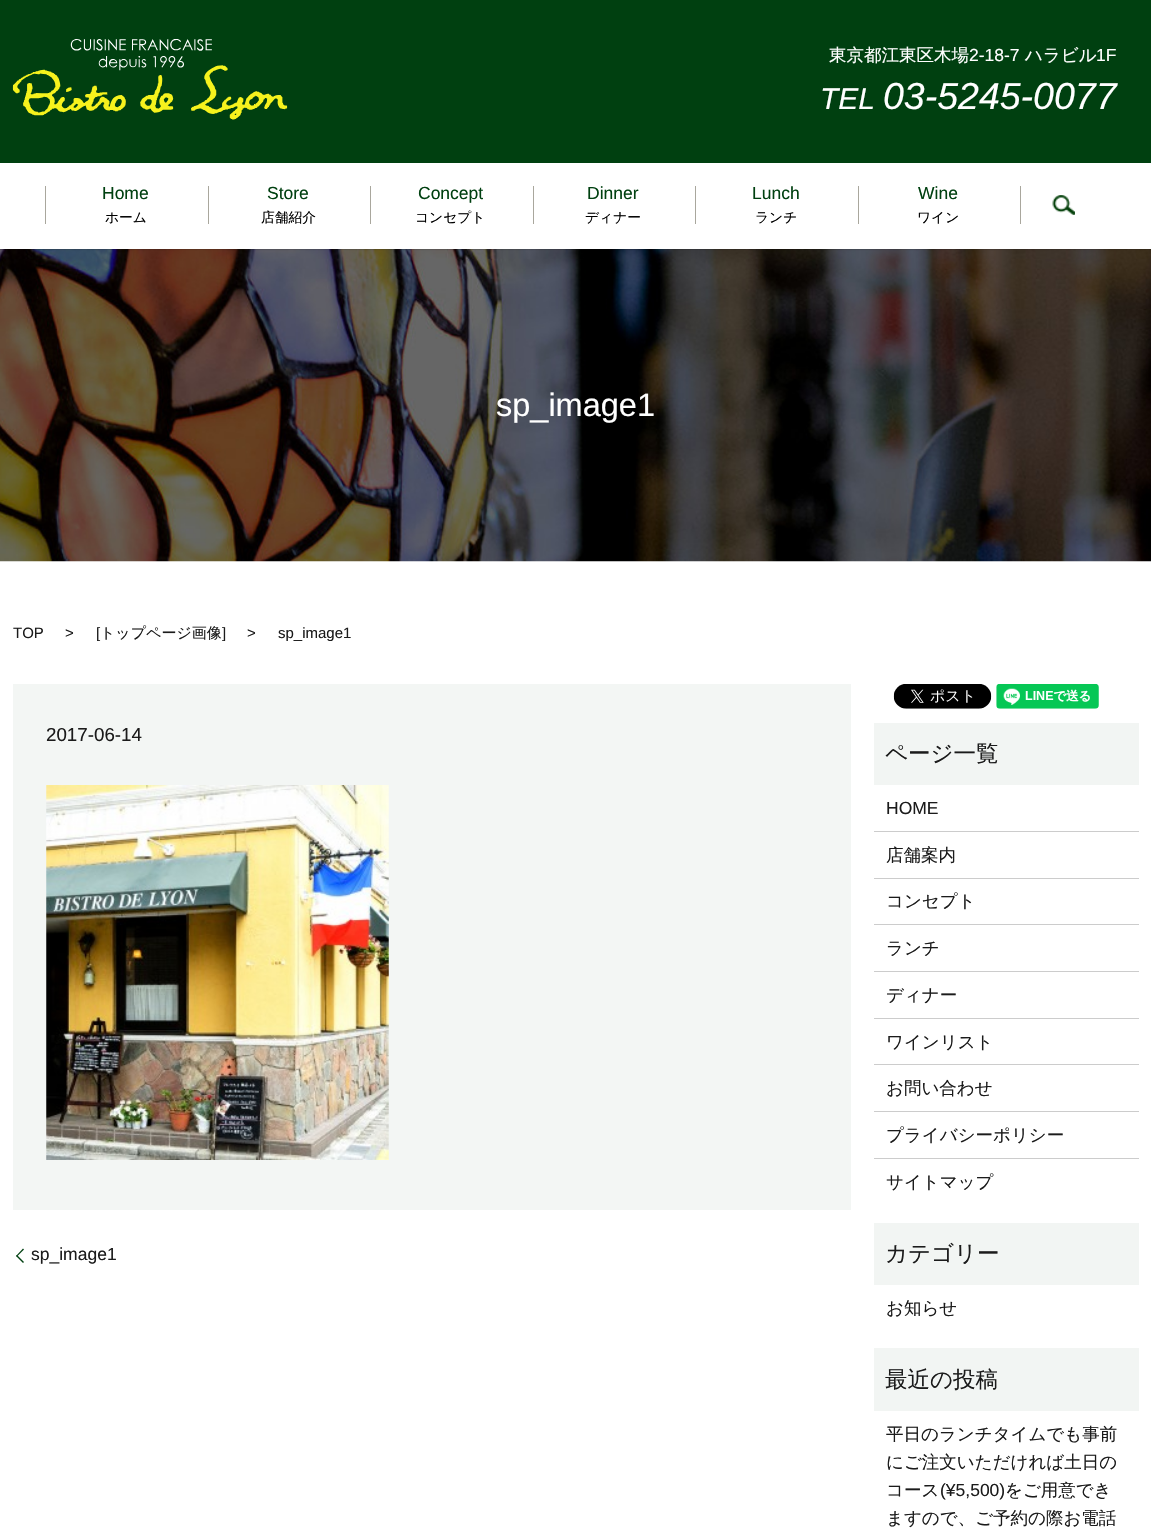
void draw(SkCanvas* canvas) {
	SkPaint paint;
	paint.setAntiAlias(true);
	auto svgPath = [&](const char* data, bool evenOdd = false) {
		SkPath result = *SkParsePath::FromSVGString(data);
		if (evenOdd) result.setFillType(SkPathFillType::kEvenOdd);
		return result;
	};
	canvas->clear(0xffffffff);
	canvas->drawImageRect(SkImages::DeferredFromEncodedData(SkData::MakeFromFileName("img3.png")), SkRect::MakeXYWH(0, 249, 1151, 313), SkSamplingOptions());
	paint.setColor(0x1a000000);
	paint.setMaskFilter(SkMaskFilter::MakeBlur(kNormal_SkBlurStyle, 0.5));
	canvas->drawRect(SkRect::MakeXYWH(0, 1, 1151, 249), paint);
	paint.setMaskFilter(nullptr);
	paint.setColor(0xff004010);
	canvas->drawRect(SkRect::MakeXYWH(0, 0, 1151, 163), paint);
	canvas->drawImageRect(SkImages::DeferredFromEncodedData(SkData::MakeFromFileName("img1.png")), SkRect::MakeXYWH(12, 39, 276, 81), SkSamplingOptions());
	SkFont f1(fontMgr->matchFamilyStyle("WenQuanYi Zen Hei", SkFontStyle(500, SkFontStyle::kNormal_Width, SkFontStyle::kUpright_Slant)), 17.5);
	f1.setSubpixel(true);
	paint.setColor(0xffffffff);
	canvas->drawString("東京都江東区木場", 829, 61, f1, paint);
	SkFont f2(fontMgr->matchFamilyStyle("Liberation Sans", SkFontStyle::Normal()), 17.5);
	f2.setSubpixel(true);
	canvas->drawString("2-18-7", 969, 61, f2, paint);
	canvas->drawString("ハラビル", 1025, 61, f1, paint);
	canvas->drawString("1F", 1096, 61, f2, paint);
	SkFont f3(fontMgr->matchFamilyStyle("Liberation Sans", SkFontStyle::Italic()), 30);
	f3.setSubpixel(true);
	canvas->drawString("TEL", 820, 109, f3, paint);
	SkFont f4(fontMgr->matchFamilyStyle("Liberation Sans", SkFontStyle::Italic()), 37.5);
	f4.setSubpixel(true);
	canvas->drawString("03-5245-0077", 883, 109, f4, paint);
	canvas->drawRect(SkRect::MakeXYWH(0, 163, 1151, 86), paint);
	paint.setColor(0xffa9a79d);
	canvas->drawRect(SkRect::MakeXYWH(45, 186, 1, 38), paint);
	paint.setColor(0xff004010);
	canvas->drawString("Home", 102, 199, f2, paint);
	SkFont f5(fontMgr->matchFamilyStyle("WenQuanYi Zen Hei", SkFontStyle(500, SkFontStyle::kNormal_Width, SkFontStyle::kUpright_Slant)), 13.75);
	f5.setSubpixel(true);
	paint.setColor(0xff000000);
	canvas->drawString("ホーム", 105, 222, f5, paint);
	paint.setColor(0xffa9a79d);
	canvas->drawRect(SkRect::MakeXYWH(208, 186, 1, 38), paint);
	paint.setColor(0xff004010);
	canvas->drawString("Store", 267, 199, f2, paint);
	paint.setColor(0xff000000);
	canvas->drawString("店舗紹介", 261, 222, f5, paint);
	paint.setColor(0xffa9a79d);
	canvas->drawRect(SkRect::MakeXYWH(370, 186, 1, 38), paint);
	paint.setColor(0xff004010);
	canvas->drawString("Concept", 418, 199, f2, paint);
	paint.setColor(0xff000000);
	canvas->drawString("コンセプト", 415, 222, f5, paint);
	paint.setColor(0xffa9a79d);
	canvas->drawRect(SkRect::MakeXYWH(533, 186, 1, 38), paint);
	paint.setColor(0xff004010);
	canvas->drawString("Dinner", 587, 199, f2, paint);
	paint.setColor(0xff000000);
	canvas->drawString("ディナー", 585, 222, f5, paint);
	paint.setColor(0xffa9a79d);
	canvas->drawRect(SkRect::MakeXYWH(695, 186, 1, 38), paint);
	paint.setColor(0xff004010);
	canvas->drawString("Lunch", 752, 199, f2, paint);
	paint.setColor(0xff000000);
	canvas->drawString("ランチ", 755, 222, f5, paint);
	paint.setColor(0xffa9a79d);
	canvas->drawRect(SkRect::MakeXYWH(858, 186, 1, 38), paint);
	paint.setColor(0xff004010);
	canvas->drawString("Wine", 918, 199, f2, paint);
	paint.setColor(0xff000000);
	canvas->drawString("ワイン", 917, 222, f5, paint);
	canvas->drawImageRect(SkImages::DeferredFromEncodedData(SkData::MakeFromFileName("img2.png")), SkRect::MakeXYWH(1052, 195, 23, 20), SkSamplingOptions());
	paint.setColor(0xffa9a79d);
	canvas->drawRect(SkRect::MakeXYWH(1020, 186, 1, 38), paint);
	SkFont f6(fontMgr->matchFamilyStyle("Liberation Sans", SkFontStyle::Normal()), 32.5);
	f6.setSubpixel(true);
	paint.setColor(0xffffffff);
	canvas->drawString("sp_image1", 496, 416, f6, paint);
	SkFont f7(fontMgr->matchFamilyStyle("Liberation Sans", SkFontStyle::Normal()), 15);
	f7.setSubpixel(true);
	paint.setColor(0xff1b1b1b);
	canvas->drawString("TOP", 13, 638, f7, paint);
	canvas->drawString(">", 65, 638, f7, paint);
	canvas->drawString("[", 96, 638, f7, paint);
	SkFont f8(fontMgr->matchFamilyStyle("WenQuanYi Zen Hei", SkFontStyle(500, SkFontStyle::kNormal_Width, SkFontStyle::kUpright_Slant)), 15);
	f8.setSubpixel(true);
	canvas->drawString("トップページ画像", 100, 638, f8, paint);
	canvas->drawString("]", 222, 638, f7, paint);
	canvas->drawString(">", 247, 638, f7, paint);
	canvas->drawString("sp_image1", 278, 638, f7, paint);
	paint.setColor(0xfff3f6f4);
	canvas->drawRect(SkRect::MakeXYWH(13, 684, 838, 526), paint);
	SkFont f9(fontMgr->matchFamilyStyle("Liberation Sans", SkFontStyle::Normal()), 18.75);
	f9.setSubpixel(true);
	paint.setColor(0xff1b1b1b);
	canvas->drawString("2017-06-14", 46, 741, f9, paint);
	canvas->drawImageRect(SkImages::DeferredFromEncodedData(SkData::MakeFromFileName("img4.png")), SkRect::MakeXYWH(46, 785, 343, 375), SkSamplingOptions());
	paint.setColor(0xff004010);
	canvas->drawPath(svgPath("M16 1256L23 1248.5L24 1249.5L17 1256.5Z"), paint);
	paint.setColor(0xff1b1b1b);
	canvas->drawString("sp_image1", 31, 1260, f2, paint);
	paint.setColor(0xff004010);
	canvas->drawPath(svgPath("M23 1263L16 1256L17 1255L24 1262Z"), paint);
	canvas->drawImageRect(SkImages::DeferredFromEncodedData(SkData::MakeFromFileName("img5.png")), SkRect::MakeXYWH(893, 684, 99, 25), SkSamplingOptions());
	canvas->drawImageRect(SkImages::DeferredFromEncodedData(SkData::MakeFromFileName("img6.png")), SkRect::MakeXYWH(996, 684, 103, 25), SkSamplingOptions());
	paint.setColor(0xfff2f5f3);
	canvas->drawRect(SkRect::MakeXYWH(874, 723, 265, 62), paint);
	SkFont f10(fontMgr->matchFamilyStyle("WenQuanYi Zen Hei", SkFontStyle(500, SkFontStyle::kNormal_Width, SkFontStyle::kUpright_Slant)), 22.5);
	f10.setSubpixel(true);
	paint.setColor(0xff1b1b1b);
	canvas->drawString("ページ一覧", 885, 761, f10, paint);
	paint.setColor(0xffcccccc);
	canvas->drawRect(SkRect::MakeXYWH(874, 831, 265, 1), paint);
	paint.setColor(0xff1b1b1b);
	canvas->drawString("HOME", 886, 814, f2, paint);
	paint.setColor(0xffcccccc);
	canvas->drawRect(SkRect::MakeXYWH(874, 878, 265, 1), paint);
	paint.setColor(0xff1b1b1b);
	canvas->drawString("店舗案内", 886, 861, f1, paint);
	paint.setColor(0xffcccccc);
	canvas->drawRect(SkRect::MakeXYWH(874, 924, 265, 1), paint);
	paint.setColor(0xff1b1b1b);
	canvas->drawString("コンセプト", 886, 907, f1, paint);
	paint.setColor(0xffcccccc);
	canvas->drawRect(SkRect::MakeXYWH(874, 971, 265, 1), paint);
	paint.setColor(0xff1b1b1b);
	canvas->drawString("ランチ", 886, 954, f1, paint);
	paint.setColor(0xffcccccc);
	canvas->drawRect(SkRect::MakeXYWH(874, 1018, 265, 1), paint);
	paint.setColor(0xff1b1b1b);
	canvas->drawString("ディナー", 886, 1001, f1, paint);
	paint.setColor(0xffcccccc);
	canvas->drawRect(SkRect::MakeXYWH(874, 1064, 265, 1), paint);
	paint.setColor(0xff1b1b1b);
	canvas->drawString("ワインリスト", 886, 1048, f1, paint);
	paint.setColor(0xffcccccc);
	canvas->drawRect(SkRect::MakeXYWH(874, 1111, 265, 1), paint);
	paint.setColor(0xff1b1b1b);
	canvas->drawString("お問い合わせ", 886, 1094, f1, paint);
	paint.setColor(0xffcccccc);
	canvas->drawRect(SkRect::MakeXYWH(874, 1158, 265, 1), paint);
	paint.setColor(0xff1b1b1b);
	canvas->drawString("プライバシーポリシー", 886, 1141, f1, paint);
	canvas->drawString("サイトマップ", 886, 1188, f1, paint);
	paint.setColor(0xfff2f5f3);
	canvas->drawRect(SkRect::MakeXYWH(874, 1223, 265, 62), paint);
	paint.setColor(0xff1b1b1b);
	canvas->drawString("カテゴリー", 885, 1261, f10, paint);
	canvas->drawString("お知らせ", 886, 1314, f1, paint);
	paint.setColor(0xfff2f5f3);
	canvas->drawRect(SkRect::MakeXYWH(874, 1348, 265, 63), paint);
	paint.setColor(0xff1b1b1b);
	canvas->drawString("最近の投稿", 885, 1387, f10, paint);
	canvas->drawString("平日のランチタイムでも事前", 886, 1440, f1, paint);
	canvas->drawString("にご注文いただければ土日の", 886, 1468, f1, paint);
	canvas->drawString("コース", 886, 1496, f1, paint);
	canvas->drawString("(¥5,500)", 940, 1496, f2, paint);
	canvas->drawString("をご用意でき", 1005, 1496, f1, paint);
	canvas->drawString("ますので、ご予約の際お電話", 886, 1524, f1, paint);
}
